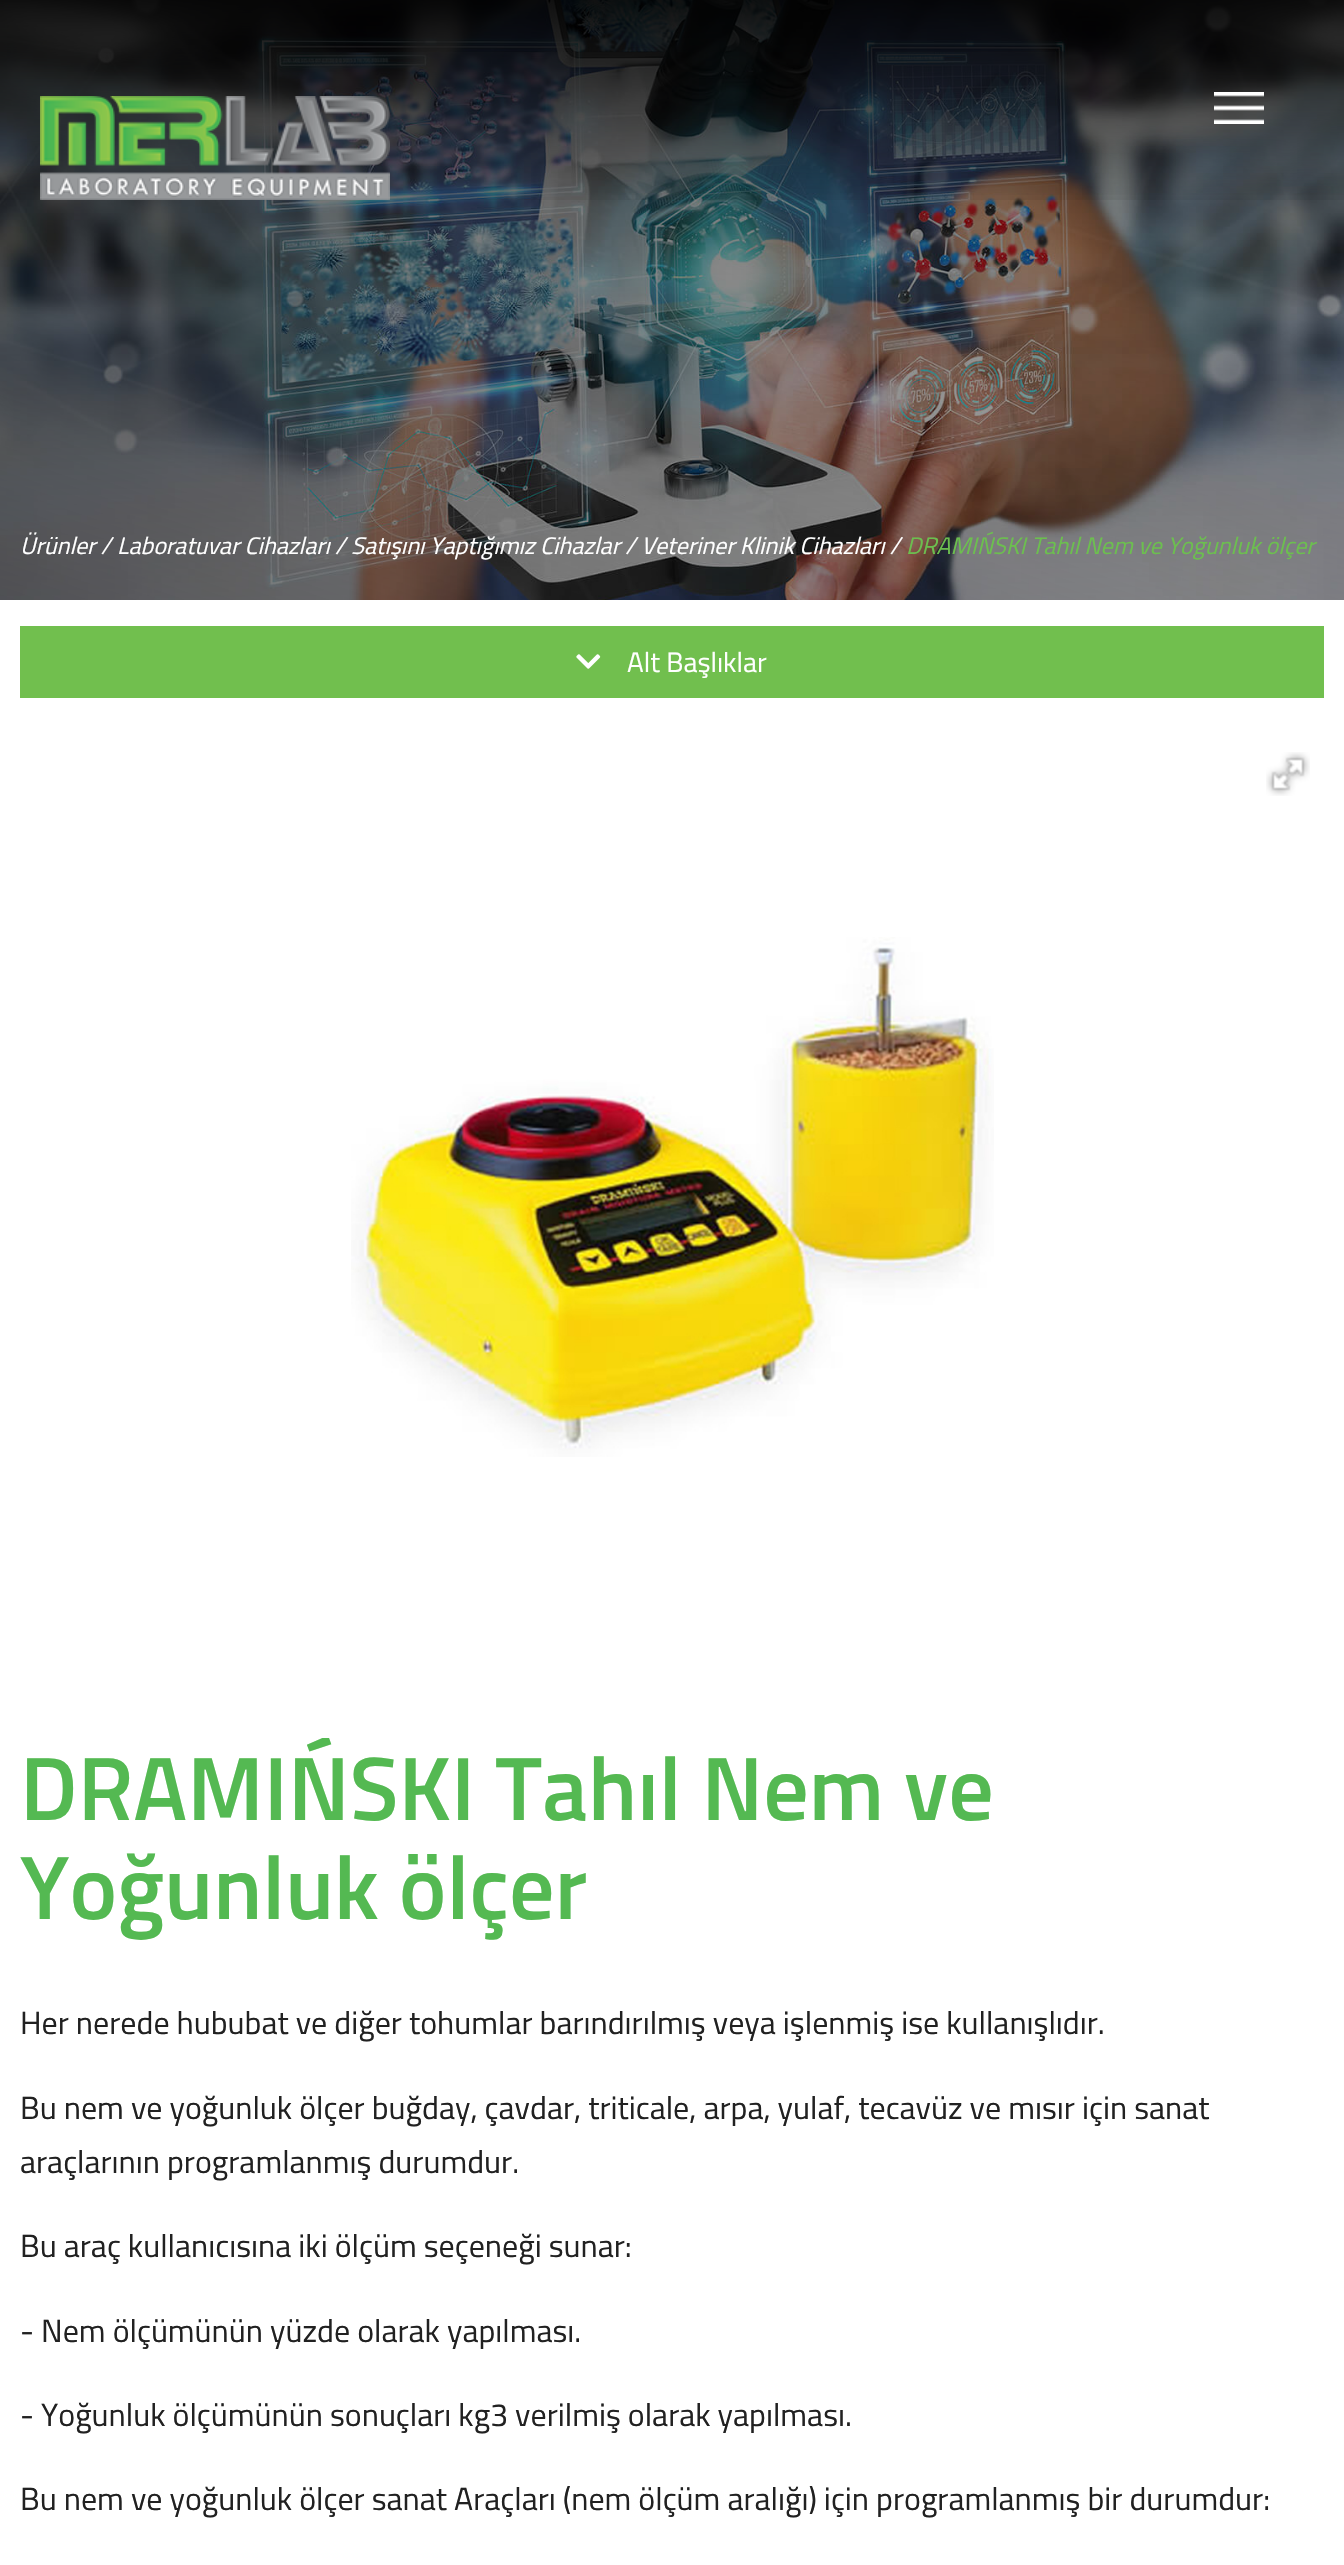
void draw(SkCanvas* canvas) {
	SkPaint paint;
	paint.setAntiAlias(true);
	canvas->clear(0xffffffff);
	canvas->drawImageRect(SkImages::DeferredFromEncodedData(SkData::MakeFromFileName("img3.png")), SkRect::MakeXYWH(0, 0, 1344, 600), SkSamplingOptions());
	paint.setColor(0x0f000000);
	canvas->drawRect(SkRect::MakeXYWH(0, 0, 1344, 200), paint);
	{
		const SkColor colors[] = {0xd1000000, 0x00000000};
		const float stops[] = {0, 1};
		const SkPoint ends[] = {{672, 0}, {672, 200}};
		paint.setShader(SkGradientShader::MakeLinear(ends, colors, stops, 2, SkTileMode::kClamp));
		paint.setAlpha(255);
	}
	canvas->drawRect(SkRect::MakeXYWH(0, 0, 1344, 195), paint);
	canvas->drawImageRect(SkImages::DeferredFromEncodedData(SkData::MakeFromFileName("img1.png")), SkRect::MakeXYWH(40, 96, 350, 104), SkSamplingOptions());
	canvas->drawImageRect(SkImages::DeferredFromEncodedData(SkData::MakeFromFileName("img2.png")), SkRect::MakeXYWH(1214, 92, 50, 32), SkSamplingOptions());
	SkFont f1(fontMgr->matchFamilyStyle("Titillium Web", SkFontStyle::Italic()), 24);
	f1.setSubpixel(true);
	paint.setShader(nullptr);
	paint.setColor(0xffffffff);
	canvas->drawString("Ürünler /", 20, 554, f1, paint);
	canvas->drawString("Laboratuvar Cihazları /", 117, 554, f1, paint);
	canvas->drawString("Satışını Yaptığımız Cihazlar /", 351, 554, f1, paint);
	canvas->drawString("Veteriner Klinik Cihazları /", 641, 554, f1, paint);
	paint.setColor(0xff6cbf4f);
	canvas->drawString("DRAMIŃSKI Tahıl Nem ve Yoğunluk ölçer", 906, 554, f1, paint);
	paint.setColor(0xff71bf4e);
	canvas->drawRect(SkRect::MakeXYWH(20, 626, 1304, 72), paint);
	canvas->drawImageRect(SkImages::DeferredFromEncodedData(SkData::MakeFromFileName("img4.png")), SkRect::MakeXYWH(576, 654, 25, 15), SkSamplingOptions());
	SkFont f2(fontMgr->matchFamilyStyle("Titillium Web", SkFontStyle::Normal()), 28);
	f2.setSubpixel(true);
	paint.setColor(0xffffffff);
	canvas->drawString("Alt Başlıklar", 627, 672, f2, paint);
	canvas->drawImageRect(SkImages::DeferredFromEncodedData(SkData::MakeFromFileName("img5.png")), SkRect::MakeXYWH(1266, 752, 44, 44), SkSamplingOptions());
	canvas->drawImageRect(SkImages::DeferredFromEncodedData(SkData::MakeFromFileName("img6.png")), SkRect::MakeXYWH(351, 937, 643, 520), SkSamplingOptions());
	canvas->save();
	canvas->clipRect(SkRect::MakeXYWH(20, 1738, 1304, 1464));
	SkFont f3(fontMgr->matchFamilyStyle("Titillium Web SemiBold", SkFontStyle(600, SkFontStyle::kNormal_Width, SkFontStyle::kUpright_Slant)), 90);
	f3.setSubpixel(true);
	paint.setColor(0xff54b952);
	canvas->drawString("DRAMIŃSKI Tahıl Nem ve", 20, 1820, f3, paint);
	canvas->restore();
	canvas->drawString("Yoğunluk ölçer", 20, 1919, f3, paint);
	SkFont f4(fontMgr->matchFamilyStyle("Titillium Web", SkFontStyle::Normal()), 32);
	f4.setSubpixel(true);
	paint.setColor(0xff212121);
	canvas->drawString("Her nerede hububat ve diğer tohumlar barındırılmış veya işlenmiş ise kullanışlıdır.", 20, 2034, f4, paint);
	canvas->drawString("Bu nem ve yoğunluk ölçer buğday, çavdar, triticale, arpa, yulaf, tecavüz ve mısır için sanat", 20, 2119, f4, paint);
	canvas->drawString("araçlarının programlanmış durumdur.", 20, 2173, f4, paint);
	canvas->drawString("Bu araç kullanıcısına iki ölçüm seçeneği sunar:", 20, 2257, f4, paint);
	canvas->drawString("- Nem ölçümünün yüzde olarak yapılması.", 20, 2342, f4, paint);
	canvas->drawString("- Yoğunluk ölçümünün sonuçları kg3 verilmiş olarak yapılması.", 20, 2426, f4, paint);
	canvas->drawString("Bu nem ve yoğunluk ölçer sanat Araçları (nem ölçüm aralığı) için programlanmış bir durumdur:", 20, 2510, f4, paint);
}
